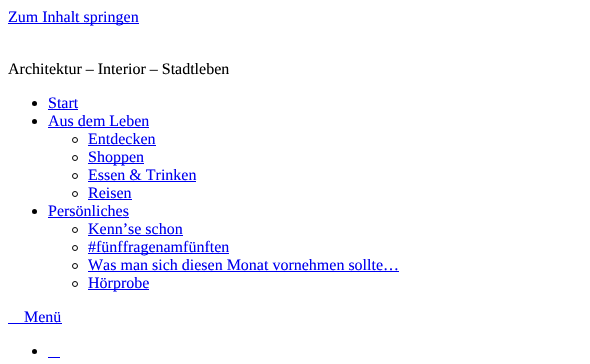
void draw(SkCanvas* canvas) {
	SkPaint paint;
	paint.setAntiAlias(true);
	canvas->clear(0xffffffff);
	paint.setColor(0xff0000ee);
	canvas->drawRect(SkRect::MakeXYWH(8, 23, 131, 1), paint);
	SkFont f1(fontMgr->matchFamilyStyle("Liberation Serif", SkFontStyle::Normal()), 16);
	f1.setSubpixel(true);
	canvas->drawString("Zum Inhalt springen", 8, 22, f1, paint);
	paint.setColor(0xff000000);
	canvas->drawString("Architektur – Interior – Stadtleben", 8, 74, f1, paint);
	canvas->drawCircle(34.5, 103.5, 2.5, paint);
	paint.setColor(0xff0000ee);
	canvas->drawString("Start", 48, 108, f1, paint);
	canvas->drawRect(SkRect::MakeXYWH(48, 109, 30, 1), paint);
	paint.setColor(0xff000000);
	canvas->drawCircle(34.5, 121.5, 2.5, paint);
	paint.setColor(0xff0000ee);
	canvas->drawString("Aus dem Leben", 48, 126, f1, paint);
	canvas->drawRect(SkRect::MakeXYWH(48, 127, 101, 1), paint);
	paint.setStroke(true);
	paint.setStrokeWidth(1);
	paint.setColor(0xff000000);
	canvas->drawCircle(75, 140, 2.5, paint);
	paint.setStroke(false);
	paint.setColor(0xff0000ee);
	canvas->drawString("Entdecken", 88, 144, f1, paint);
	canvas->drawRect(SkRect::MakeXYWH(88, 145, 68, 1), paint);
	paint.setStroke(true);
	paint.setColor(0xff000000);
	canvas->drawCircle(75, 158, 2.5, paint);
	paint.setStroke(false);
	paint.setColor(0xff0000ee);
	canvas->drawRect(SkRect::MakeXYWH(88, 163, 56, 1), paint);
	canvas->drawString("Shoppen", 88, 162, f1, paint);
	paint.setStroke(true);
	paint.setColor(0xff000000);
	canvas->drawCircle(75, 176, 2.5, paint);
	paint.setStroke(false);
	paint.setColor(0xff0000ee);
	canvas->drawString("Essen & Trinken", 88, 180, f1, paint);
	canvas->drawRect(SkRect::MakeXYWH(88, 181, 108, 1), paint);
	paint.setStroke(true);
	paint.setColor(0xff000000);
	canvas->drawCircle(75, 194, 2.5, paint);
	paint.setStroke(false);
	paint.setColor(0xff0000ee);
	canvas->drawString("Reisen", 88, 198, f1, paint);
	canvas->drawRect(SkRect::MakeXYWH(88, 199, 44, 1), paint);
	paint.setColor(0xff000000);
	canvas->drawCircle(34.5, 211.5, 2.5, paint);
	paint.setColor(0xff0000ee);
	canvas->drawString("Persönliches", 48, 216, f1, paint);
	canvas->drawRect(SkRect::MakeXYWH(48, 217, 81, 1), paint);
	paint.setStroke(true);
	paint.setColor(0xff000000);
	canvas->drawCircle(75, 230, 2.5, paint);
	paint.setStroke(false);
	paint.setColor(0xff0000ee);
	canvas->drawString("Kenn’se schon", 88, 234, f1, paint);
	canvas->drawRect(SkRect::MakeXYWH(88, 235, 95, 1), paint);
	paint.setStroke(true);
	paint.setColor(0xff000000);
	canvas->drawCircle(75, 248, 2.5, paint);
	paint.setStroke(false);
	paint.setColor(0xff0000ee);
	canvas->drawRect(SkRect::MakeXYWH(88, 253, 141, 1), paint);
	canvas->drawString("#fünffragenamfünften", 88, 252, f1, paint);
	paint.setStroke(true);
	paint.setColor(0xff000000);
	canvas->drawCircle(75, 266, 2.5, paint);
	paint.setStroke(false);
	paint.setColor(0xff0000ee);
	canvas->drawString("Was man sich diesen Monat vornehmen sollte…", 88, 270, f1, paint);
	canvas->drawRect(SkRect::MakeXYWH(88, 271, 311, 1), paint);
	paint.setStroke(true);
	paint.setColor(0xff000000);
	canvas->drawCircle(75, 284, 2.5, paint);
	paint.setStroke(false);
	paint.setColor(0xff0000ee);
	canvas->drawRect(SkRect::MakeXYWH(88, 289, 61, 1), paint);
	canvas->drawString("Hörprobe", 88, 288, f1, paint);
	canvas->drawString("Menü", 24, 322, f1, paint);
	canvas->drawRect(SkRect::MakeXYWH(8, 323, 54, 1), paint);
	paint.setColor(0xff000000);
	canvas->drawCircle(34.5, 351.5, 2.5, paint);
	paint.setColor(0xff0000ee);
	canvas->drawRect(SkRect::MakeXYWH(48, 357, 12, 1), paint);
}
